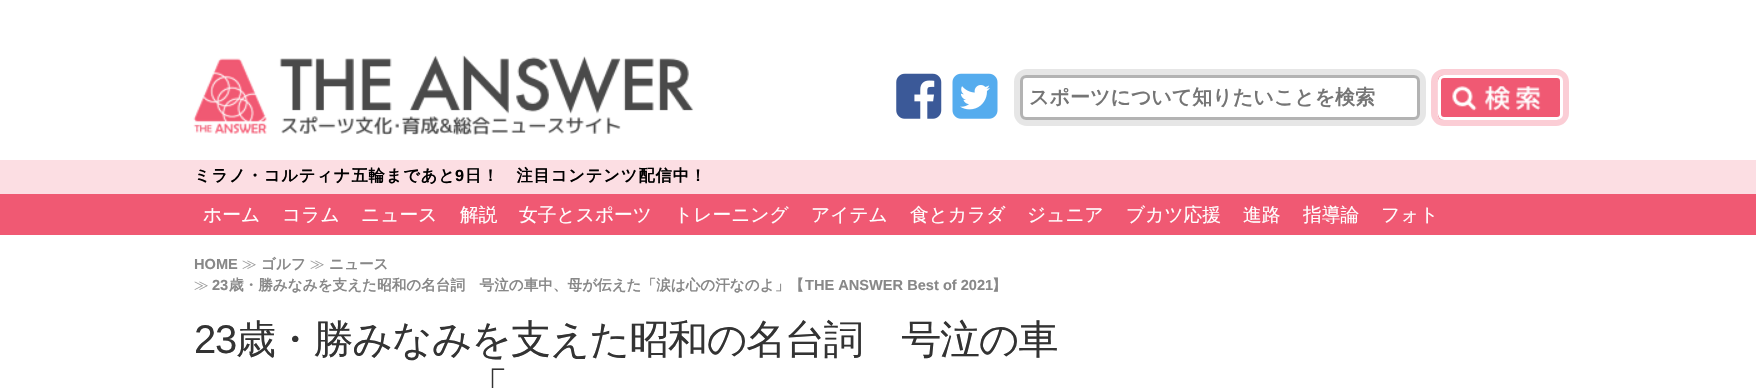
void draw(SkCanvas* canvas) {
	SkPaint paint;
	paint.setAntiAlias(true);
	auto spacedText = [&](const char* s, float x, float y, const SkFont& font, const SkPaint& ink, float letter, float word) {
		std::vector<SkGlyphID> glyphs(font.countText(s, strlen(s), SkTextEncoding::kUTF8));
		std::vector<float> xs(glyphs.size());
		font.textToGlyphs(s, strlen(s), SkTextEncoding::kUTF8, glyphs);
		font.getXPos(glyphs, xs, x);
		float extra = 0;
		for (size_t i = 0; i < glyphs.size(); i++) {
			xs[i] += extra;
			extra += letter + word * (glyphs[i] == font.unicharToGlyph(' '));
		}
		canvas->drawTextBlob(SkTextBlob::MakeFromPosHGlyphs(glyphs, xs, y, font), 0, 0, ink);
	};
	canvas->clear(0xffffffff);
	canvas->drawImageRect(SkImages::DeferredFromEncodedData(SkData::MakeFromFileName("img1.png")), SkRect::MakeXYWH(193, 55, 501, 80), SkSamplingOptions());
	canvas->drawImageRect(SkImages::DeferredFromEncodedData(SkData::MakeFromFileName("img2.png")), SkRect::MakeXYWH(896, 73, 46, 46), SkSamplingOptions());
	canvas->drawImageRect(SkImages::DeferredFromEncodedData(SkData::MakeFromFileName("img3.png")), SkRect::MakeXYWH(952, 73, 46, 46), SkSamplingOptions());
	paint.setStroke(true);
	paint.setStrokeWidth(6);
	paint.setColor(0xffe6e6e6);
	canvas->drawRoundRect(SkRect::MakeXYWH(1017, 72, 406, 51), 10, 10, paint);
	paint.setStroke(false);
	paint.setColor(0xffffffff);
	canvas->drawRoundRect(SkRect::MakeXYWH(1021.5, 76.5, 397, 42), 4.5, 4.5, paint);
	paint.setStroke(true);
	paint.setStrokeWidth(3);
	paint.setColor(0xffb3b3b3);
	canvas->drawRoundRect(SkRect::MakeXYWH(1021.5, 76.5, 397, 42), 4.5, 4.5, paint);
	SkFont f1(fontMgr->matchFamilyStyle("WenQuanYi Zen Hei", SkFontStyle::Bold()), 20);
	f1.setSubpixel(true);
	paint.setStroke(false);
	paint.setColor(0xff757575);
	canvas->drawString("スポーツについて知りたいことを検索", 1029, 104, f1, paint);
	paint.setStroke(true);
	paint.setStrokeWidth(6);
	paint.setColor(0xfffbcdd5);
	canvas->drawRoundRect(SkRect::MakeXYWH(1434, 72, 132, 51), 10, 10, paint);
	canvas->drawImageRect(SkImages::DeferredFromEncodedData(SkData::MakeFromFileName("img4.png")), SkRect::MakeXYWH(1437, 75, 126, 45), SkSamplingOptions());
	paint.setStrokeWidth(3);
	paint.setColor(0xffffffff);
	canvas->drawRoundRect(SkRect::MakeXYWH(1439.5, 76.5, 122, 42), 4.5, 4.5, paint);
	paint.setStroke(false);
	paint.setColor(0xfffcdee3);
	canvas->drawRect(SkRect::MakeXYWH(0, 160, 1756, 34), paint);
	SkFont f2(fontMgr->matchFamilyStyle("WenQuanYi Zen Hei", SkFontStyle::Bold()), 16.25);
	f2.setSubpixel(true);
	paint.setColor(0xff000000);
	spacedText("ミラノ・コルティナ五輪まであと", 194, 181, f2, paint, 0.9, 0);
	SkFont f3(fontMgr->matchFamilyStyle("Liberation Sans", SkFontStyle::Bold()), 16.25);
	f3.setSubpixel(true);
	spacedText("9", 455, 181, f3, paint, 0.9, 0);
	spacedText("日！　注目コンテンツ配信中！", 465, 181, f2, paint, 0.9, 0);
	paint.setColor(0xfff05973);
	canvas->drawRect(SkRect::MakeXYWH(0, 194, 1756, 41), paint);
	SkFont f4(fontMgr->matchFamilyStyle("WenQuanYi Zen Hei", SkFontStyle(500, SkFontStyle::kNormal_Width, SkFontStyle::kUpright_Slant)), 18.75);
	f4.setSubpixel(true);
	paint.setColor(0xffffffff);
	canvas->drawString("ホーム", 203, 221, f4, paint);
	canvas->drawString("コラム", 282, 221, f4, paint);
	canvas->drawString("ニュース", 361, 221, f4, paint);
	canvas->drawString("解説", 460, 221, f4, paint);
	canvas->drawString("女子とスポーツ", 519, 221, f4, paint);
	canvas->drawString("トレーニング", 674, 221, f4, paint);
	canvas->drawString("アイテム", 811, 221, f4, paint);
	canvas->drawString("食とカラダ", 910, 221, f4, paint);
	canvas->drawString("ジュニア", 1027, 221, f4, paint);
	canvas->drawString("ブカツ応援", 1126, 221, f4, paint);
	canvas->drawString("進路", 1243, 221, f4, paint);
	canvas->drawString("指導論", 1303, 221, f4, paint);
	canvas->drawString("フォト", 1381, 221, f4, paint);
	SkFont f5(fontMgr->matchFamilyStyle("Liberation Sans", SkFontStyle::Bold()), 14.6);
	f5.setSubpixel(true);
	paint.setColor(0xff888888);
	canvas->drawString("HOME", 194, 269, f5, paint);
	SkFont f6(fontMgr->matchFamilyStyle("WenQuanYi Zen Hei", SkFontStyle(500, SkFontStyle::kNormal_Width, SkFontStyle::kUpright_Slant)), 14.6);
	f6.setSubpixel(true);
	paint.setColor(0xff999999);
	canvas->drawString("≫", 242, 269, f6, paint);
	SkFont f7(fontMgr->matchFamilyStyle("WenQuanYi Zen Hei", SkFontStyle::Bold()), 14.6);
	f7.setSubpixel(true);
	paint.setColor(0xff888888);
	canvas->drawString("ゴルフ", 261, 269, f7, paint);
	paint.setColor(0xff999999);
	canvas->drawString("≫", 310, 269, f6, paint);
	paint.setColor(0xff888888);
	canvas->drawString("ニュース", 329, 269, f7, paint);
	paint.setColor(0xff999999);
	canvas->drawString("≫", 194, 290, f6, paint);
	paint.setColor(0xff888888);
	canvas->drawString("23", 212, 290, f5, paint);
	canvas->drawString("歳・勝みなみを支えた昭和の名台詞　号泣の車中、母が伝えた「涙は心の汗なのよ」【", 229, 290, f7, paint);
	canvas->drawString("THE ANSWER Best of 2021", 805, 290, f5, paint);
	canvas->drawString("】", 992, 290, f7, paint);
	SkFont f8(fontMgr->matchFamilyStyle("Liberation Sans", SkFontStyle::Normal()), 40);
	f8.setSubpixel(true);
	paint.setColor(0xff333333);
	spacedText("23", 194, 353, f8, paint, -1.25, 0);
	SkFont f9(fontMgr->matchFamilyStyle("WenQuanYi Zen Hei", SkFontStyle(500, SkFontStyle::kNormal_Width, SkFontStyle::kUpright_Slant)), 40);
	f9.setSubpixel(true);
	spacedText("歳・勝みなみを支えた昭和の名台詞　号泣の車", 236, 353, f9, paint, -1.25, 0);
	spacedText("「", 468, 401, f9, paint, -1.25, 0);
}
